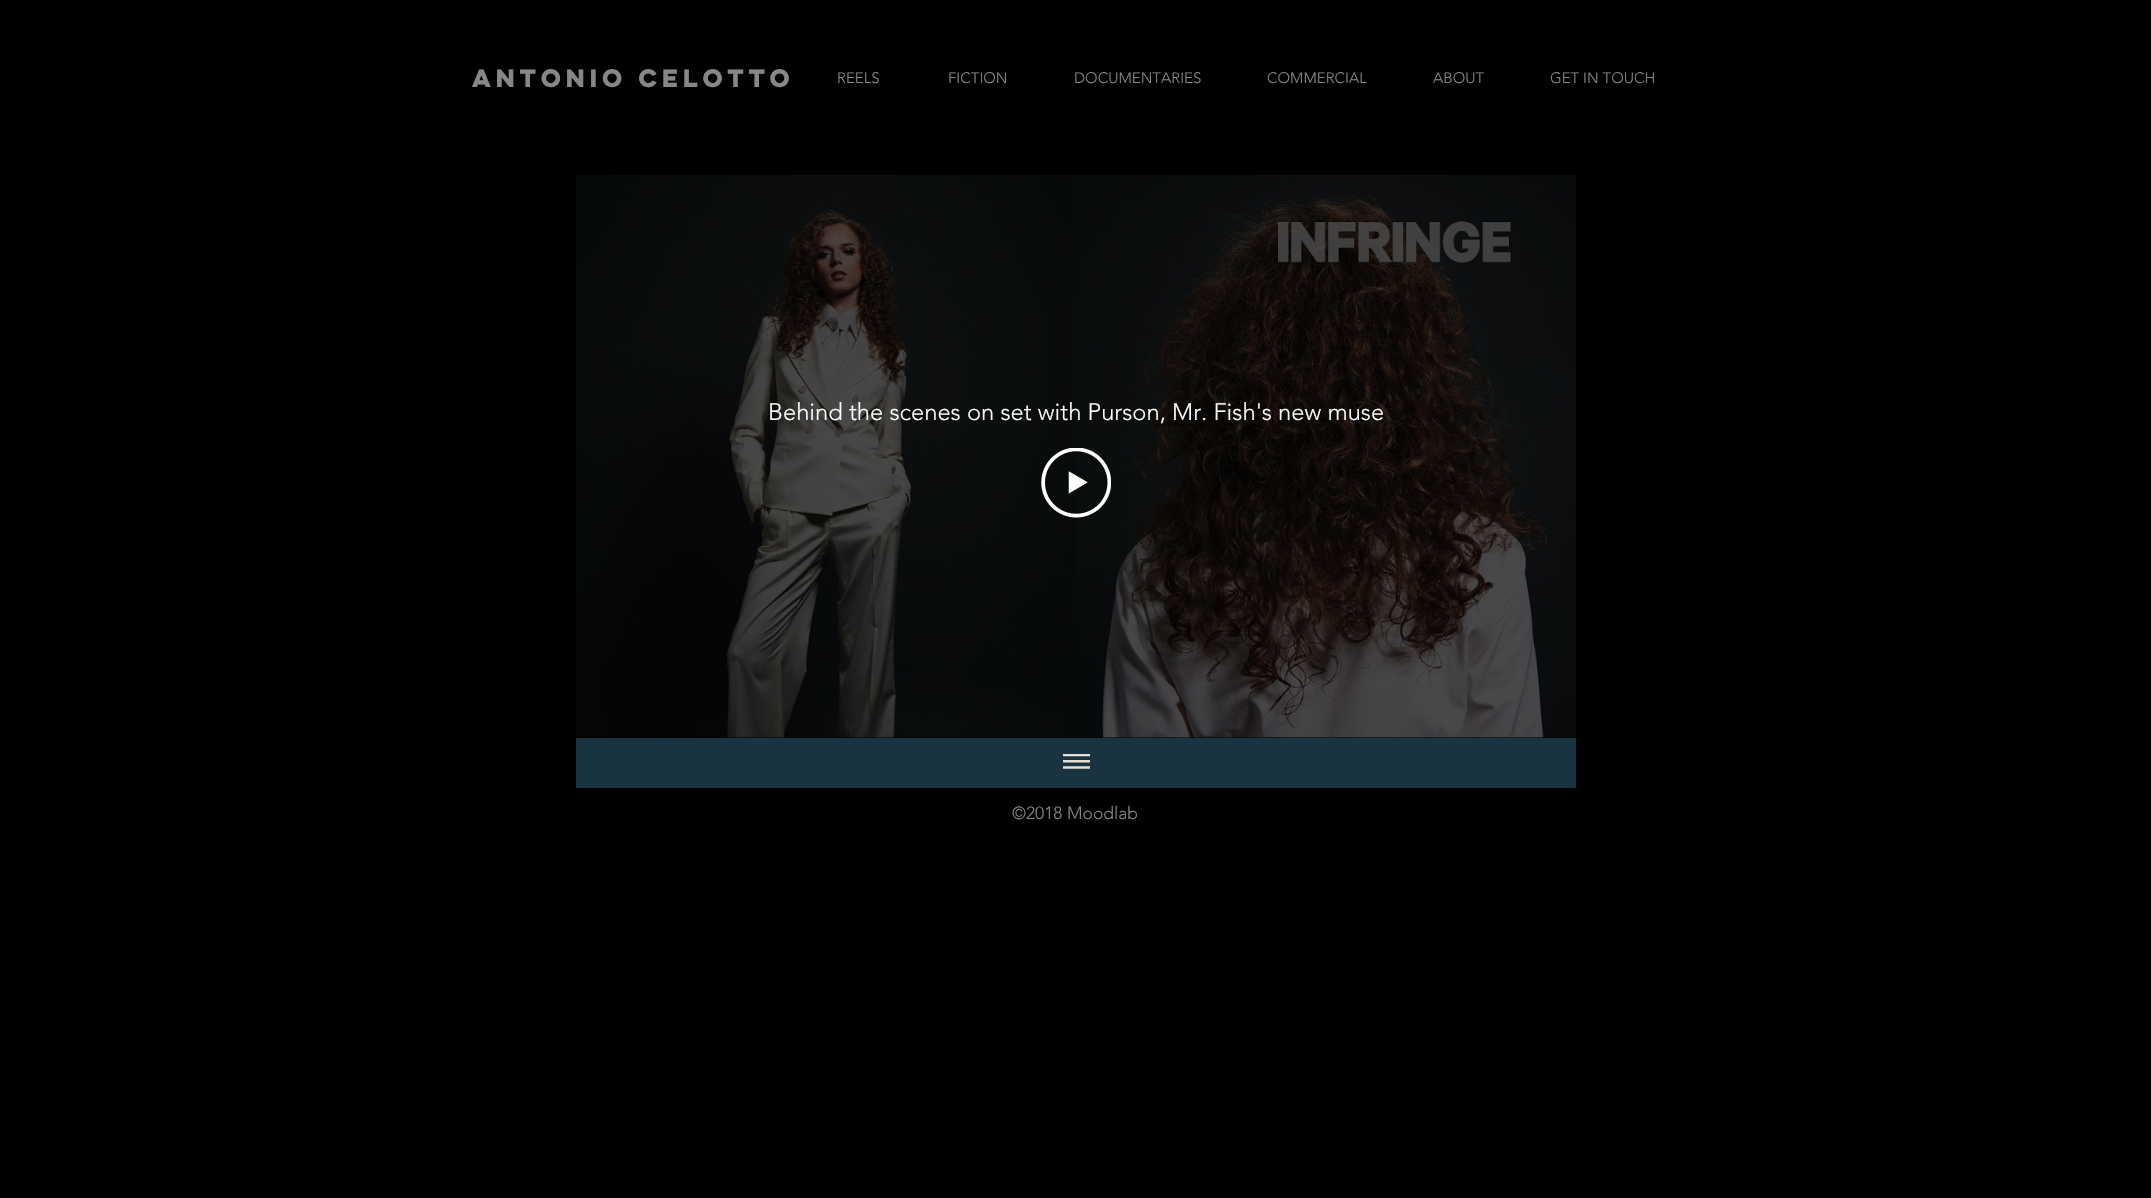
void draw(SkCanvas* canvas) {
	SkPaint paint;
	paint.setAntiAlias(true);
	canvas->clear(0xff000000);
	SkFont f1(fontMgr->matchFamilyStyle("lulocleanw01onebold", SkFontStyle::Bold()), 22.5);
	f1.setSubpixel(true);
	paint.setColor(0xff878787);
	canvas->drawString("ANTONIO CELOTTO", 472, 87, f1, paint);
	SkFont f2(fontMgr->matchFamilyStyle("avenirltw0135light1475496", SkFontStyle(300, SkFontStyle::kNormal_Width, SkFontStyle::kUpright_Slant)), 15);
	f2.setSubpixel(true);
	canvas->drawString("REELS", 837, 83, f2, paint);
	canvas->drawString("FICTION", 948, 83, f2, paint);
	canvas->drawString("DOCUMENTARIES", 1074, 83, f2, paint);
	canvas->drawString("COMMERCIAL", 1267, 83, f2, paint);
	canvas->drawString("ABOUT", 1433, 83, f2, paint);
	canvas->drawString("GET IN TOUCH", 1550, 83, f2, paint);
	canvas->drawImageRect(SkImages::DeferredFromEncodedData(SkData::MakeFromFileName("img1.png")), SkRect::MakeXYWH(576, 175, 1000, 563), SkSamplingOptions());
	canvas->drawImageRect(SkImages::DeferredFromEncodedData(SkData::MakeFromFileName("img2.png")), SkRect::MakeXYWH(576, 175, 1000, 563), SkSamplingOptions());
	SkFont f3(fontMgr->matchFamilyStyle("avenirltw0135light1475496", SkFontStyle(300, SkFontStyle::kNormal_Width, SkFontStyle::kUpright_Slant)), 23.75);
	f3.setSubpixel(true);
	paint.setColor(0xffffffff);
	canvas->drawString("Behind the scenes on set with Purson, Mr. Fish's new muse", 768, 420, f3, paint);
	canvas->drawImageRect(SkImages::DeferredFromEncodedData(SkData::MakeFromFileName("img3.png")), SkRect::MakeXYWH(1041, 448, 70, 70), SkSamplingOptions());
	paint.setColor(0xff193340);
	canvas->drawRect(SkRect::MakeXYWH(576, 738, 1000, 50), paint);
	canvas->drawImageRect(SkImages::DeferredFromEncodedData(SkData::MakeFromFileName("img4.png")), SkRect::MakeXYWH(1063, 754, 27, 15), SkSamplingOptions());
	SkFont f4(fontMgr->matchFamilyStyle("avenirltw0135light1475496", SkFontStyle(300, SkFontStyle::kNormal_Width, SkFontStyle::kUpright_Slant)), 17.5);
	f4.setSubpixel(true);
	paint.setColor(0xff878787);
	canvas->drawString("©2018 Moodlab", 1012, 819, f4, paint);
}
